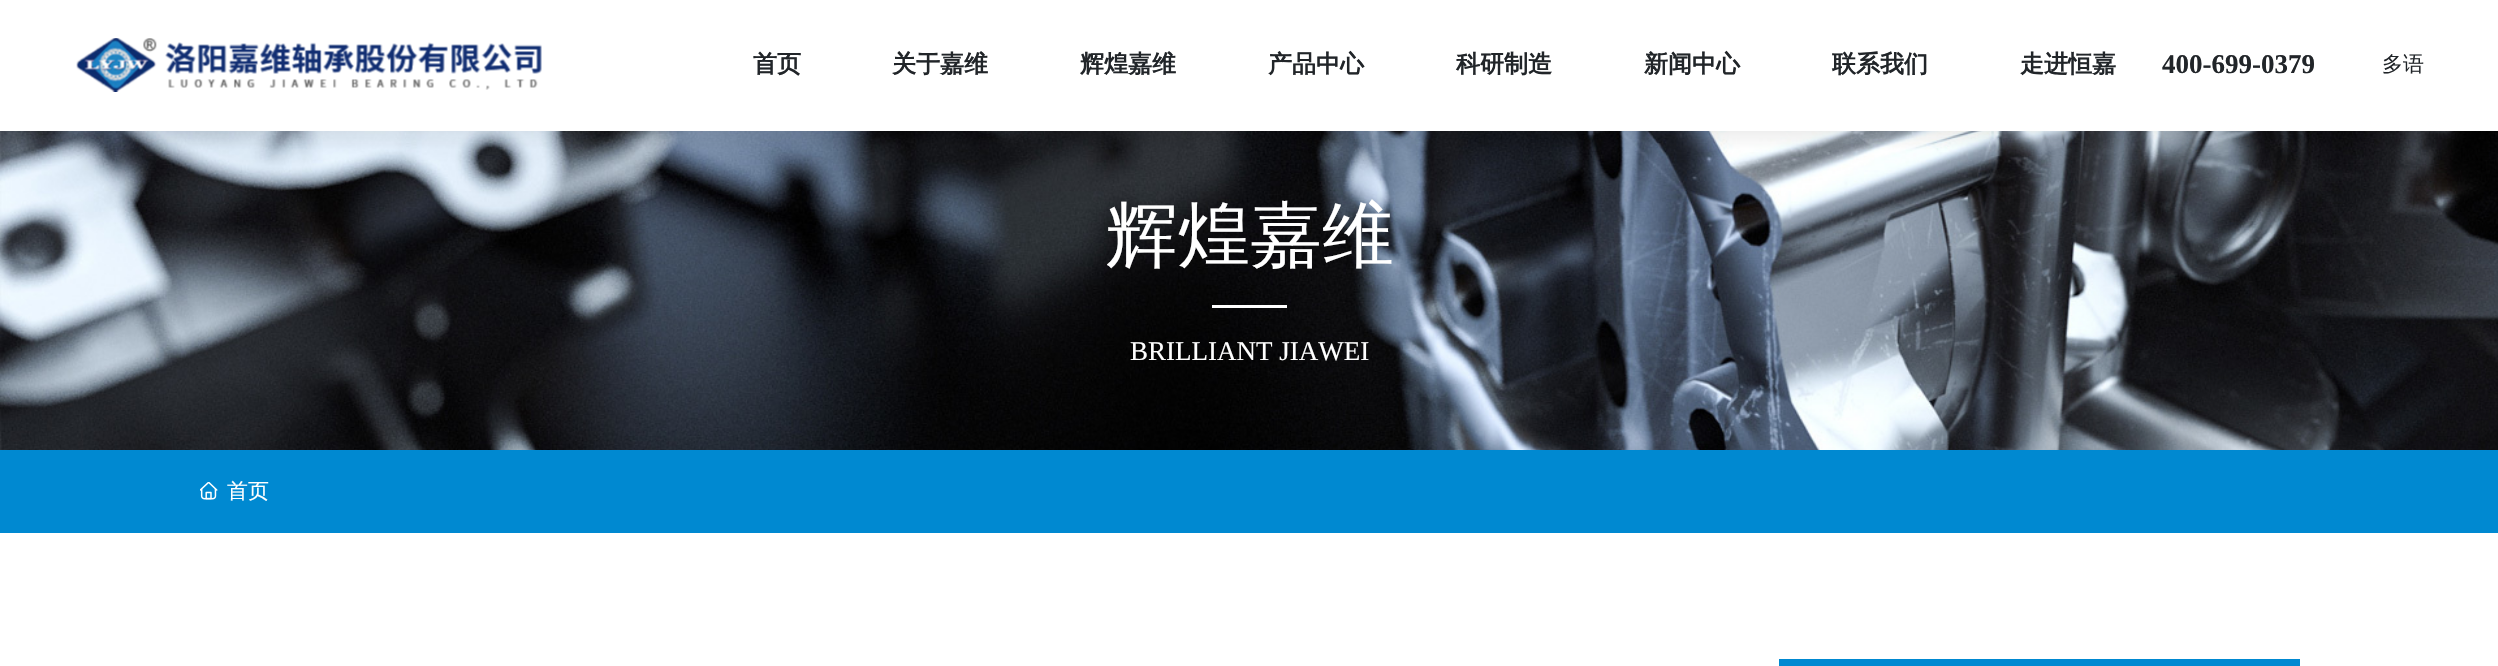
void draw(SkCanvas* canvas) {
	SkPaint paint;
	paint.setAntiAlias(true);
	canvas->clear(0xffffffff);
	canvas->drawImageRect(SkImages::DeferredFromEncodedData(SkData::MakeFromFileName("img1.png")), SkRect::MakeXYWH(76, 38, 466, 54), SkSamplingOptions());
	SkFont f1(fontMgr->matchFamilyStyle("WenQuanYi Zen Hei", SkFontStyle::Bold()), 24);
	f1.setSubpixel(true);
	paint.setColor(0xff212529);
	canvas->drawString("首页", 753, 72, f1, paint);
	canvas->drawString("关于嘉维", 892, 72, f1, paint);
	canvas->drawString("辉煌嘉维", 1080, 72, f1, paint);
	canvas->drawString("产品中心", 1268, 72, f1, paint);
	canvas->drawString("科研制造", 1456, 72, f1, paint);
	canvas->drawString("新闻中心", 1644, 72, f1, paint);
	canvas->drawString("联系我们", 1832, 72, f1, paint);
	canvas->drawString("走进恒嘉", 2020, 72, f1, paint);
	SkFont f2(fontMgr->matchFamilyStyle("Liberation Serif", SkFontStyle::Bold()), 27);
	f2.setSubpixel(true);
	canvas->drawString("400-699-0379", 2162, 73, f2, paint);
	SkFont f3(fontMgr->matchFamilyStyle("WenQuanYi Zen Hei", SkFontStyle(500, SkFontStyle::kNormal_Width, SkFontStyle::kUpright_Slant)), 21);
	f3.setSubpixel(true);
	canvas->drawString("多语", 2382, 71, f3, paint);
	canvas->drawImageRect(SkImages::DeferredFromEncodedData(SkData::MakeFromFileName("img2.png")), SkRect::MakeXYWH(0, 131, 2498, 319), SkSamplingOptions());
	SkFont f4(fontMgr->matchFamilyStyle("WenQuanYi Zen Hei", SkFontStyle(500, SkFontStyle::kNormal_Width, SkFontStyle::kUpright_Slant)), 72);
	f4.setSubpixel(true);
	paint.setColor(0xffffffff);
	canvas->drawString("辉煌嘉维", 1106, 260, f4, paint);
	canvas->drawRect(SkRect::MakeXYWH(1212, 305, 75, 3), paint);
	SkFont f5(fontMgr->matchFamilyStyle("Liberation Serif", SkFontStyle::Normal()), 27);
	f5.setSubpixel(true);
	canvas->drawString("BRILLIANT JIAWEI", 1130, 360, f5, paint);
	paint.setColor(0xff0089d1);
	canvas->drawRect(SkRect::MakeXYWH(0, 450, 2498, 83), paint);
	canvas->drawImageRect(SkImages::DeferredFromEncodedData(SkData::MakeFromFileName("img3.png")), SkRect::MakeXYWH(200, 482, 18, 18), SkSamplingOptions());
	paint.setColor(0xffffffff);
	canvas->drawString("首页", 227, 498, f3, paint);
	paint.setColor(0xff0089d1);
	canvas->drawRect(SkRect::MakeXYWH(1779, 659, 521, 7), paint);
}
